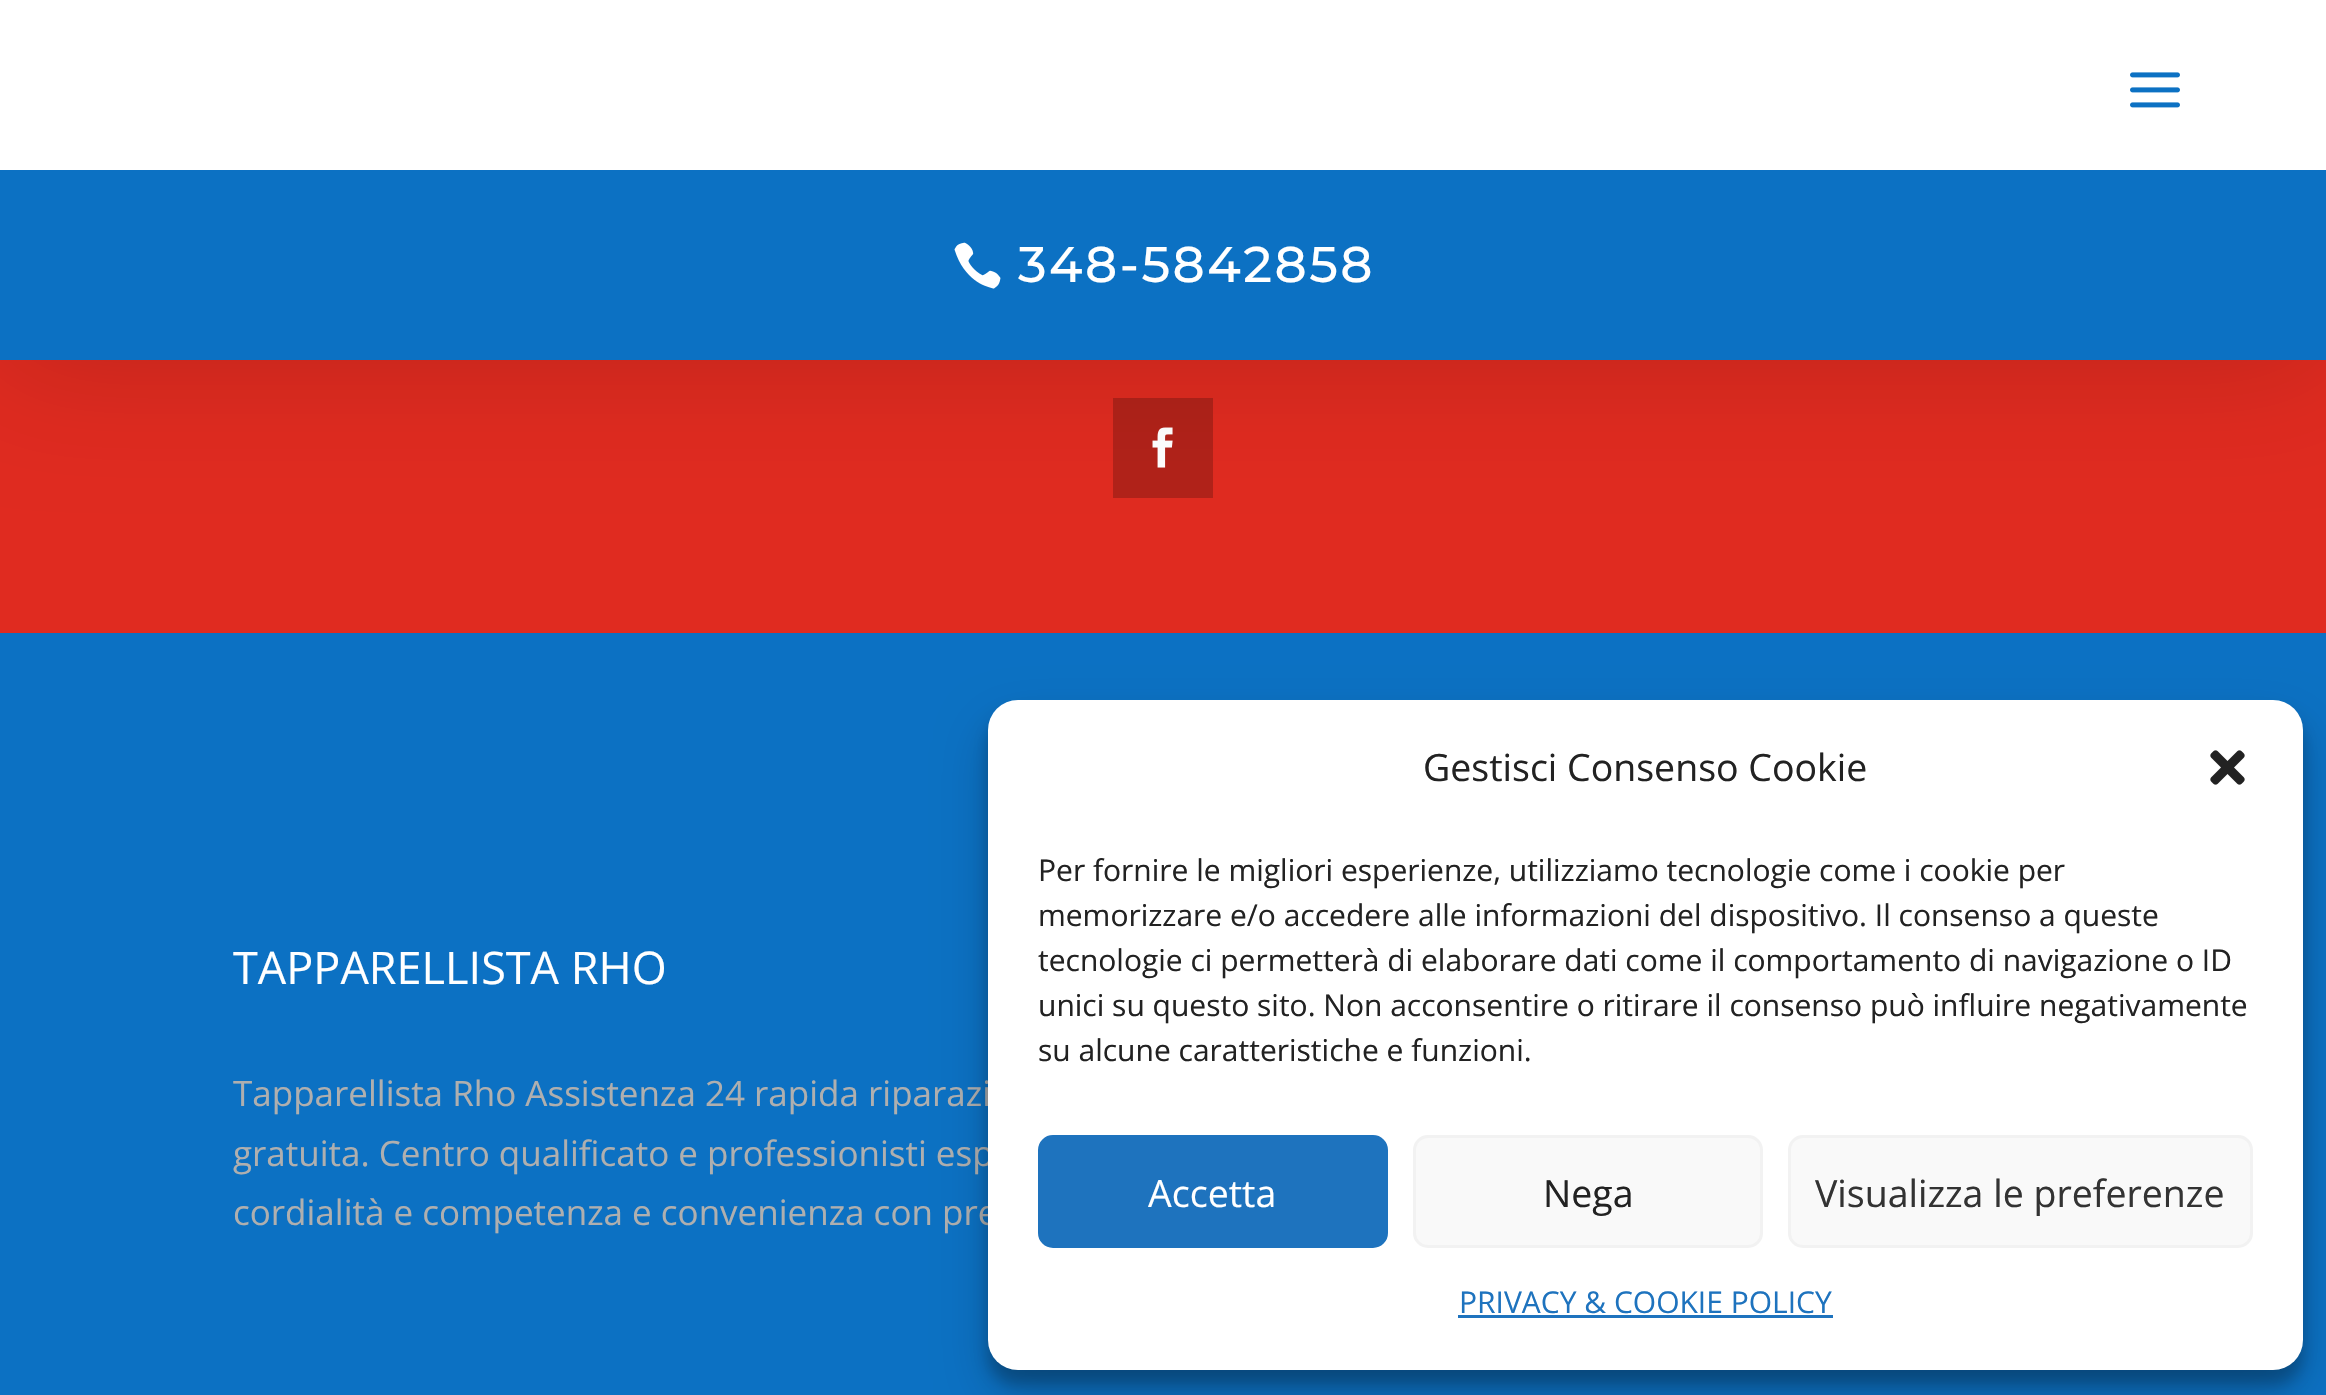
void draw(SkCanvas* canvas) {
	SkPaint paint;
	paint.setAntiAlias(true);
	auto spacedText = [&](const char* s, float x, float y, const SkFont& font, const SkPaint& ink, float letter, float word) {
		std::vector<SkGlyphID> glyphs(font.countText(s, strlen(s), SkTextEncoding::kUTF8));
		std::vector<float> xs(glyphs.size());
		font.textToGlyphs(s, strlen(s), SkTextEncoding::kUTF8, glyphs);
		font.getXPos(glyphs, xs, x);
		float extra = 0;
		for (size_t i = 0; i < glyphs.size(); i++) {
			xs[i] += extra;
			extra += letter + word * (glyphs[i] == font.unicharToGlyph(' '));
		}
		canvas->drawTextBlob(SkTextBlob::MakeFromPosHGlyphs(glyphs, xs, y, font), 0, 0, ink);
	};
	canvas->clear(0xffe02b20);
	paint.setColor(0xffb12219);
	canvas->drawRect(SkRect::MakeXYWH(1113, 398, 100, 100), paint);
	canvas->drawImageRect(SkImages::DeferredFromEncodedData(SkData::MakeFromFileName("img3.png")), SkRect::MakeXYWH(1152, 427, 21, 41), SkSamplingOptions());
	paint.setColor(0x26000000);
	paint.setMaskFilter(SkMaskFilter::MakeBlur(kNormal_SkBlurStyle, 62.5));
	canvas->drawRect(SkRect::MakeXYWH(0, 5, 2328, 360), paint);
	paint.setMaskFilter(nullptr);
	paint.setColor(0xffffffff);
	canvas->drawRect(SkRect::MakeXYWH(0, 0, 2326, 170), paint);
	canvas->drawImageRect(SkImages::DeferredFromEncodedData(SkData::MakeFromFileName("img1.png")), SkRect::MakeXYWH(2130, 72, 50, 36), SkSamplingOptions());
	paint.setColor(0xff0c71c3);
	canvas->drawRect(SkRect::MakeXYWH(0, 170, 2326, 190), paint);
	canvas->drawImageRect(SkImages::DeferredFromEncodedData(SkData::MakeFromFileName("img2.png")), SkRect::MakeXYWH(954, 242, 47, 47), SkSamplingOptions());
	SkFont f1(fontMgr->matchFamilyStyle("Montserrat", SkFontStyle(500, SkFontStyle::kNormal_Width, SkFontStyle::kUpright_Slant)), 50);
	f1.setSubpixel(true);
	paint.setColor(0xffffffff);
	spacedText("348-5842858", 1018, 282, f1, paint, 2.5, 0);
	paint.setColor(0xff0c71c3);
	canvas->drawRect(SkRect::MakeXYWH(0, 633, 2326, 762), paint);
	SkFont f2(fontMgr->matchFamilyStyle("Open Sans", SkFontStyle::Normal()), 45);
	f2.setSubpixel(true);
	paint.setColor(0xffffffff);
	canvas->drawString("TAPPARELLISTA RHO", 233, 984, f2, paint);
	SkFont f3(fontMgr->matchFamilyStyle("Open Sans", SkFontStyle::Normal()), 35);
	f3.setSubpixel(true);
	paint.setColor(0xffafafaf);
	canvas->drawString("Tapparellista Rho Assistenza 24 rapida riparazi", 233, 1106, f3, paint);
	canvas->drawString("gratuita. Centro qualificato e professionisti esp", 233, 1166, f3, paint);
	canvas->drawString("cordialità e competenza e convenienza con pre", 233, 1225, f3, paint);
	paint.setColor(0x3b000000);
	paint.setMaskFilter(SkMaskFilter::MakeBlur(kNormal_SkBlurStyle, 7.5));
	canvas->drawRoundRect(SkRect::MakeXYWH(988, 715, 1315, 670), 30, 30, paint);
	paint.setMaskFilter(nullptr);
	paint.setColor(0x30000000);
	paint.setMaskFilter(SkMaskFilter::MakeBlur(kNormal_SkBlurStyle, 25));
	canvas->drawRoundRect(SkRect::MakeXYWH(988, 725, 1315, 670), 30, 30, paint);
	paint.setMaskFilter(nullptr);
	paint.setColor(0xffffffff);
	canvas->drawRoundRect(SkRect::MakeXYWH(988, 700, 1315, 670), 30, 30, paint);
	SkFont f4(fontMgr->matchFamilyStyle("Open Sans", SkFontStyle::Normal()), 37.5);
	f4.setSubpixel(true);
	paint.setColor(0xff222222);
	canvas->drawString("Gestisci Consenso Cookie", 1423, 781, f4, paint);
	canvas->drawImageRect(SkImages::DeferredFromEncodedData(SkData::MakeFromFileName("img4.png")), SkRect::MakeXYWH(2210, 750, 35, 35), SkSamplingOptions());
	SkFont f5(fontMgr->matchFamilyStyle("Open Sans", SkFontStyle::Normal()), 30);
	f5.setSubpixel(true);
	canvas->drawString("Per fornire le migliori esperienze, utilizziamo tecnologie come i cookie per", 1038, 881, f5, paint);
	canvas->drawString("memorizzare e/o accedere alle informazioni del dispositivo. Il consenso a queste", 1038, 926, f5, paint);
	canvas->drawString("tecnologie ci permetterà di elaborare dati come il comportamento di navigazione o ID", 1038, 971, f5, paint);
	canvas->drawString("unici su questo sito. Non acconsentire o ritirare il consenso può influire negativamente", 1038, 1016, f5, paint);
	canvas->drawString("su alcune caratteristiche e funzioni.", 1038, 1061, f5, paint);
	paint.setColor(0xff1e73be);
	canvas->drawRoundRect(SkRect::MakeXYWH(1039.5, 1136.5, 347, 110), 13.5, 13.5, paint);
	paint.setStroke(true);
	paint.setStrokeWidth(3);
	canvas->drawRoundRect(SkRect::MakeXYWH(1039.5, 1136.5, 347, 110), 13.5, 13.5, paint);
	paint.setStroke(false);
	paint.setColor(0xffffffff);
	canvas->drawString("Accetta", 1148, 1207, f4, paint);
	paint.setColor(0xfff9f9f9);
	canvas->drawRoundRect(SkRect::MakeXYWH(1414.5, 1136.5, 347, 110), 13.5, 13.5, paint);
	paint.setStroke(true);
	paint.setColor(0xfff2f2f2);
	canvas->drawRoundRect(SkRect::MakeXYWH(1414.5, 1136.5, 347, 110), 13.5, 13.5, paint);
	paint.setStroke(false);
	paint.setColor(0xff222222);
	canvas->drawString("Nega", 1543, 1207, f4, paint);
	paint.setColor(0xfff9f9f9);
	canvas->drawRoundRect(SkRect::MakeXYWH(1789.5, 1136.5, 462, 110), 13.5, 13.5, paint);
	paint.setStroke(true);
	paint.setColor(0xfff2f2f2);
	canvas->drawRoundRect(SkRect::MakeXYWH(1789.5, 1136.5, 462, 110), 13.5, 13.5, paint);
	paint.setStroke(false);
	paint.setColor(0xff333333);
	canvas->drawString("Visualizza le preferenze", 1815, 1207, f4, paint);
	paint.setColor(0xff1e73be);
	canvas->drawString("PRIVACY & COOKIE POLICY", 1459, 1313, f5, paint);
	canvas->drawRect(SkRect::MakeXYWH(1458, 1315, 375, 3), paint);
}
